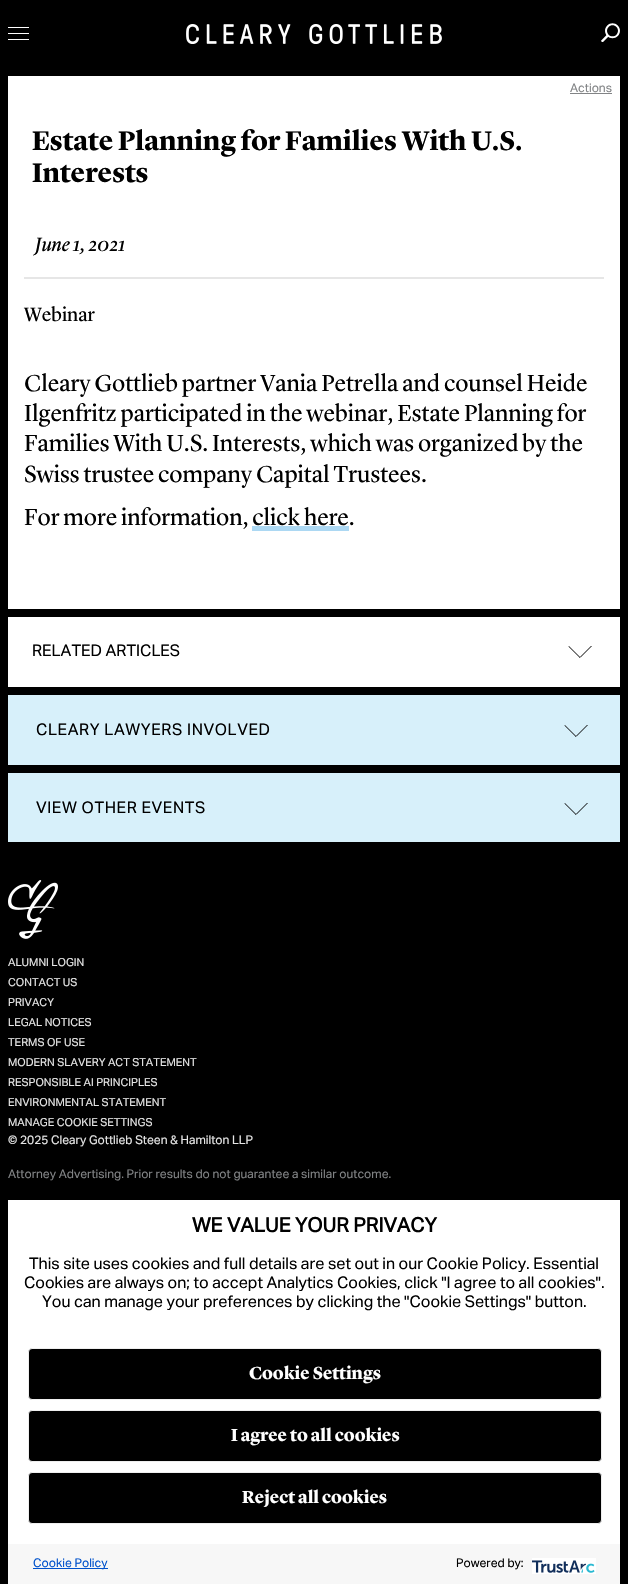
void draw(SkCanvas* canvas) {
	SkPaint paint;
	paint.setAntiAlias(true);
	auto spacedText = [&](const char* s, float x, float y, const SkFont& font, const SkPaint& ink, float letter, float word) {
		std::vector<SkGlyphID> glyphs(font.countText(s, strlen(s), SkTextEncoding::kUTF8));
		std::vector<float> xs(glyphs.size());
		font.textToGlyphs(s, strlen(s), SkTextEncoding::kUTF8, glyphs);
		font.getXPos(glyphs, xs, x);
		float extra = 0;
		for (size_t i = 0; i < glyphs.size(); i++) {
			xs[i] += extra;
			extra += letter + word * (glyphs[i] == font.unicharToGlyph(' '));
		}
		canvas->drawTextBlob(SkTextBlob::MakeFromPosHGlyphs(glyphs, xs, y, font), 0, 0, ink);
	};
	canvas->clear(0xff000000);
	canvas->drawImageRect(SkImages::DeferredFromEncodedData(SkData::MakeFromFileName("img1.png")), SkRect::MakeXYWH(8, 27, 21, 13), SkSamplingOptions());
	canvas->drawImageRect(SkImages::DeferredFromEncodedData(SkData::MakeFromFileName("img2.png")), SkRect::MakeXYWH(186, 24, 256, 20), SkSamplingOptions());
	canvas->drawImageRect(SkImages::DeferredFromEncodedData(SkData::MakeFromFileName("img3.png")), SkRect::MakeXYWH(601, 23, 19, 19), SkSamplingOptions());
	paint.setColor(0xffffffff);
	canvas->drawRect(SkRect::MakeXYWH(8, 76, 612, 611), paint);
	SkFont f1(fontMgr->matchFamilyStyle("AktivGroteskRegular", SkFontStyle::Normal()), 12);
	f1.setSubpixel(true);
	paint.setColor(0xff828486);
	canvas->drawString("Actions", 570, 92, f1, paint);
	canvas->drawRect(SkRect::MakeXYWH(570, 93, 42, 1), paint);
	SkFont f2(fontMgr->matchFamilyStyle("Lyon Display", SkFontStyle::Bold()), 28);
	f2.setSubpixel(true);
	paint.setColor(0xff000000);
	canvas->drawString("Estate Planning for Families With U.S.", 32, 150, f2, paint);
	canvas->drawString("Interests", 32, 182, f2, paint);
	SkFont f3(fontMgr->matchFamilyStyle("Lyon Display", SkFontStyle::Italic()), 20);
	f3.setSubpixel(true);
	canvas->drawString("June 1, 2021", 35, 251, f3, paint);
	paint.setColor(0xffe6e6e6);
	canvas->drawRect(SkRect::MakeXYWH(24, 277, 580, 2), paint);
	SkFont f4(fontMgr->matchFamilyStyle("Lyon Display", SkFontStyle::Normal()), 20);
	f4.setSubpixel(true);
	paint.setColor(0xff000000);
	canvas->drawString("Webinar", 24, 321, f4, paint);
	SkFont f5(fontMgr->matchFamilyStyle("Lyon Display", SkFontStyle::Normal()), 24);
	f5.setSubpixel(true);
	canvas->drawString("Cleary Gottlieb partner Vania Petrella and counsel Heide", 24, 391, f5, paint);
	canvas->drawString("Ilgenfritz participated in the webinar, Estate Planning for", 24, 421, f5, paint);
	canvas->drawString("Families With U.S. Interests, which was organized by the", 24, 451, f5, paint);
	canvas->drawString("Swiss trustee company Capital Trustees.", 24, 482, f5, paint);
	canvas->drawString("For more information, click here.", 24, 525, f5, paint);
	paint.setColor(0xffacd8f3);
	canvas->drawRect(SkRect::MakeXYWH(252, 526, 97, 5), paint);
	paint.setColor(0xff000000);
	canvas->drawRect(SkRect::MakeXYWH(8, 609, 612, 8), paint);
	SkFont f6(fontMgr->matchFamilyStyle("AktivGroteskRegular", SkFontStyle::Normal()), 16);
	f6.setSubpixel(true);
	canvas->drawString("RELATED ARTICLES", 32, 656, f6, paint);
	canvas->drawImageRect(SkImages::DeferredFromEncodedData(SkData::MakeFromFileName("img4.png")), SkRect::MakeXYWH(568, 646, 24, 12), SkSamplingOptions());
	paint.setColor(0xffd7f0fa);
	canvas->drawRect(SkRect::MakeXYWH(8, 695, 612, 70), paint);
	paint.setColor(0xff000000);
	spacedText("CLEARY LAWYERS INVOLVED", 36, 735, f6, paint, 0.6, 0);
	canvas->drawImageRect(SkImages::DeferredFromEncodedData(SkData::MakeFromFileName("img5.png")), SkRect::MakeXYWH(564, 725, 24, 12), SkSamplingOptions());
	paint.setColor(0xffd7f0fa);
	canvas->drawRect(SkRect::MakeXYWH(8, 773, 612, 69), paint);
	paint.setColor(0xff000000);
	spacedText("VIEW OTHER EVENTS", 36, 813, f6, paint, 0.6, 0);
	canvas->drawImageRect(SkImages::DeferredFromEncodedData(SkData::MakeFromFileName("img5.png")), SkRect::MakeXYWH(564, 803, 24, 12), SkSamplingOptions());
	canvas->drawImageRect(SkImages::DeferredFromEncodedData(SkData::MakeFromFileName("img6.png")), SkRect::MakeXYWH(8, 880, 50, 59), SkSamplingOptions());
	SkFont f7(fontMgr->matchFamilyStyle("AktivGroteskRegular", SkFontStyle::Normal()), 11);
	f7.setSubpixel(true);
	paint.setColor(0xffe6e6e6);
	canvas->drawString("ALUMNI LOGIN", 8, 966, f7, paint);
	canvas->drawString("CONTACT US", 8, 986, f7, paint);
	canvas->drawString("PRIVACY", 8, 1006, f7, paint);
	canvas->drawString("LEGAL NOTICES", 8, 1026, f7, paint);
	canvas->drawString("TERMS OF USE", 8, 1046, f7, paint);
	canvas->drawString("MODERN SLAVERY ACT STATEMENT", 8, 1066, f7, paint);
	canvas->drawString("RESPONSIBLE AI PRINCIPLES", 8, 1086, f7, paint);
	canvas->drawString("ENVIRONMENTAL STATEMENT", 8, 1106, f7, paint);
	canvas->drawString("MANAGE COOKIE SETTINGS", 8, 1126, f7, paint);
	canvas->drawString("© 2025 Cleary Gottlieb Steen & Hamilton LLP", 8, 1144, f1, paint);
	paint.setColor(0xff828486);
	canvas->drawString("Attorney Advertising. Prior results do not guarantee a similar outcome.", 8, 1178, f1, paint);
	paint.setColor(0xffffffff);
	canvas->drawRect(SkRect::MakeXYWH(8, 1200, 612, 344), paint);
	SkFont f8(fontMgr->matchFamilyStyle("AktivGroteskRegular", SkFontStyle::Bold()), 20);
	f8.setSubpixel(true);
	paint.setColor(0xff000000);
	canvas->drawString("WE VALUE YOUR PRIVACY", 192, 1232, f8, paint);
	canvas->drawString("This site uses cookies and full details are set out in our Cookie Policy. Essential", 29, 1269, f6, paint);
	canvas->drawString("Cookies are always on; to accept Analytics Cookies, click \"I agree to all cookies\".", 24, 1288, f6, paint);
	canvas->drawString("You can manage your preferences by clicking the \"Cookie Settings\" button.", 42, 1307, f6, paint);
	canvas->drawRoundRect(SkRect::MakeXYWH(28.5, 1348.5, 573, 51), 3.5, 3.5, paint);
	paint.setStroke(true);
	paint.setStrokeWidth(1);
	paint.setColor(0xffeeeeee);
	canvas->drawRoundRect(SkRect::MakeXYWH(28.5, 1348.5, 573, 51), 3.5, 3.5, paint);
	SkFont f9(fontMgr->matchFamilyStyle("Lyon Display", SkFontStyle::Bold()), 18);
	f9.setSubpixel(true);
	paint.setStroke(false);
	paint.setColor(0xffffffff);
	canvas->drawString("Cookie Settings", 249, 1379, f9, paint);
	paint.setColor(0xff000000);
	canvas->drawRoundRect(SkRect::MakeXYWH(28.5, 1410.5, 573, 51), 3.5, 3.5, paint);
	paint.setStroke(true);
	paint.setColor(0xffeeeeee);
	canvas->drawRoundRect(SkRect::MakeXYWH(28.5, 1410.5, 573, 51), 3.5, 3.5, paint);
	paint.setStroke(false);
	paint.setColor(0xffffffff);
	canvas->drawString("I agree to all cookies", 231, 1441, f9, paint);
	paint.setColor(0xff000000);
	canvas->drawRoundRect(SkRect::MakeXYWH(28.5, 1472.5, 573, 51), 3.5, 3.5, paint);
	paint.setStroke(true);
	paint.setColor(0xffeeeeee);
	canvas->drawRoundRect(SkRect::MakeXYWH(28.5, 1472.5, 573, 51), 3.5, 3.5, paint);
	paint.setStroke(false);
	paint.setColor(0xffffffff);
	canvas->drawString("Reject all cookies", 242, 1503, f9, paint);
	paint.setColor(0xfff7f7f7);
	canvas->drawRect(SkRect::MakeXYWH(8, 1544, 612, 40), paint);
	paint.setColor(0xff0052cc);
	canvas->drawRect(SkRect::MakeXYWH(33, 1568, 75, 1), paint);
	canvas->drawString("Cookie Policy", 33, 1567, f1, paint);
	paint.setColor(0xff000000);
	canvas->drawString("Powered by:", 456, 1567, f1, paint);
	canvas->drawImageRect(SkImages::DeferredFromEncodedData(SkData::MakeFromFileName("img7.png")), SkRect::MakeXYWH(532, 1558, 64, 16), SkSamplingOptions());
}
